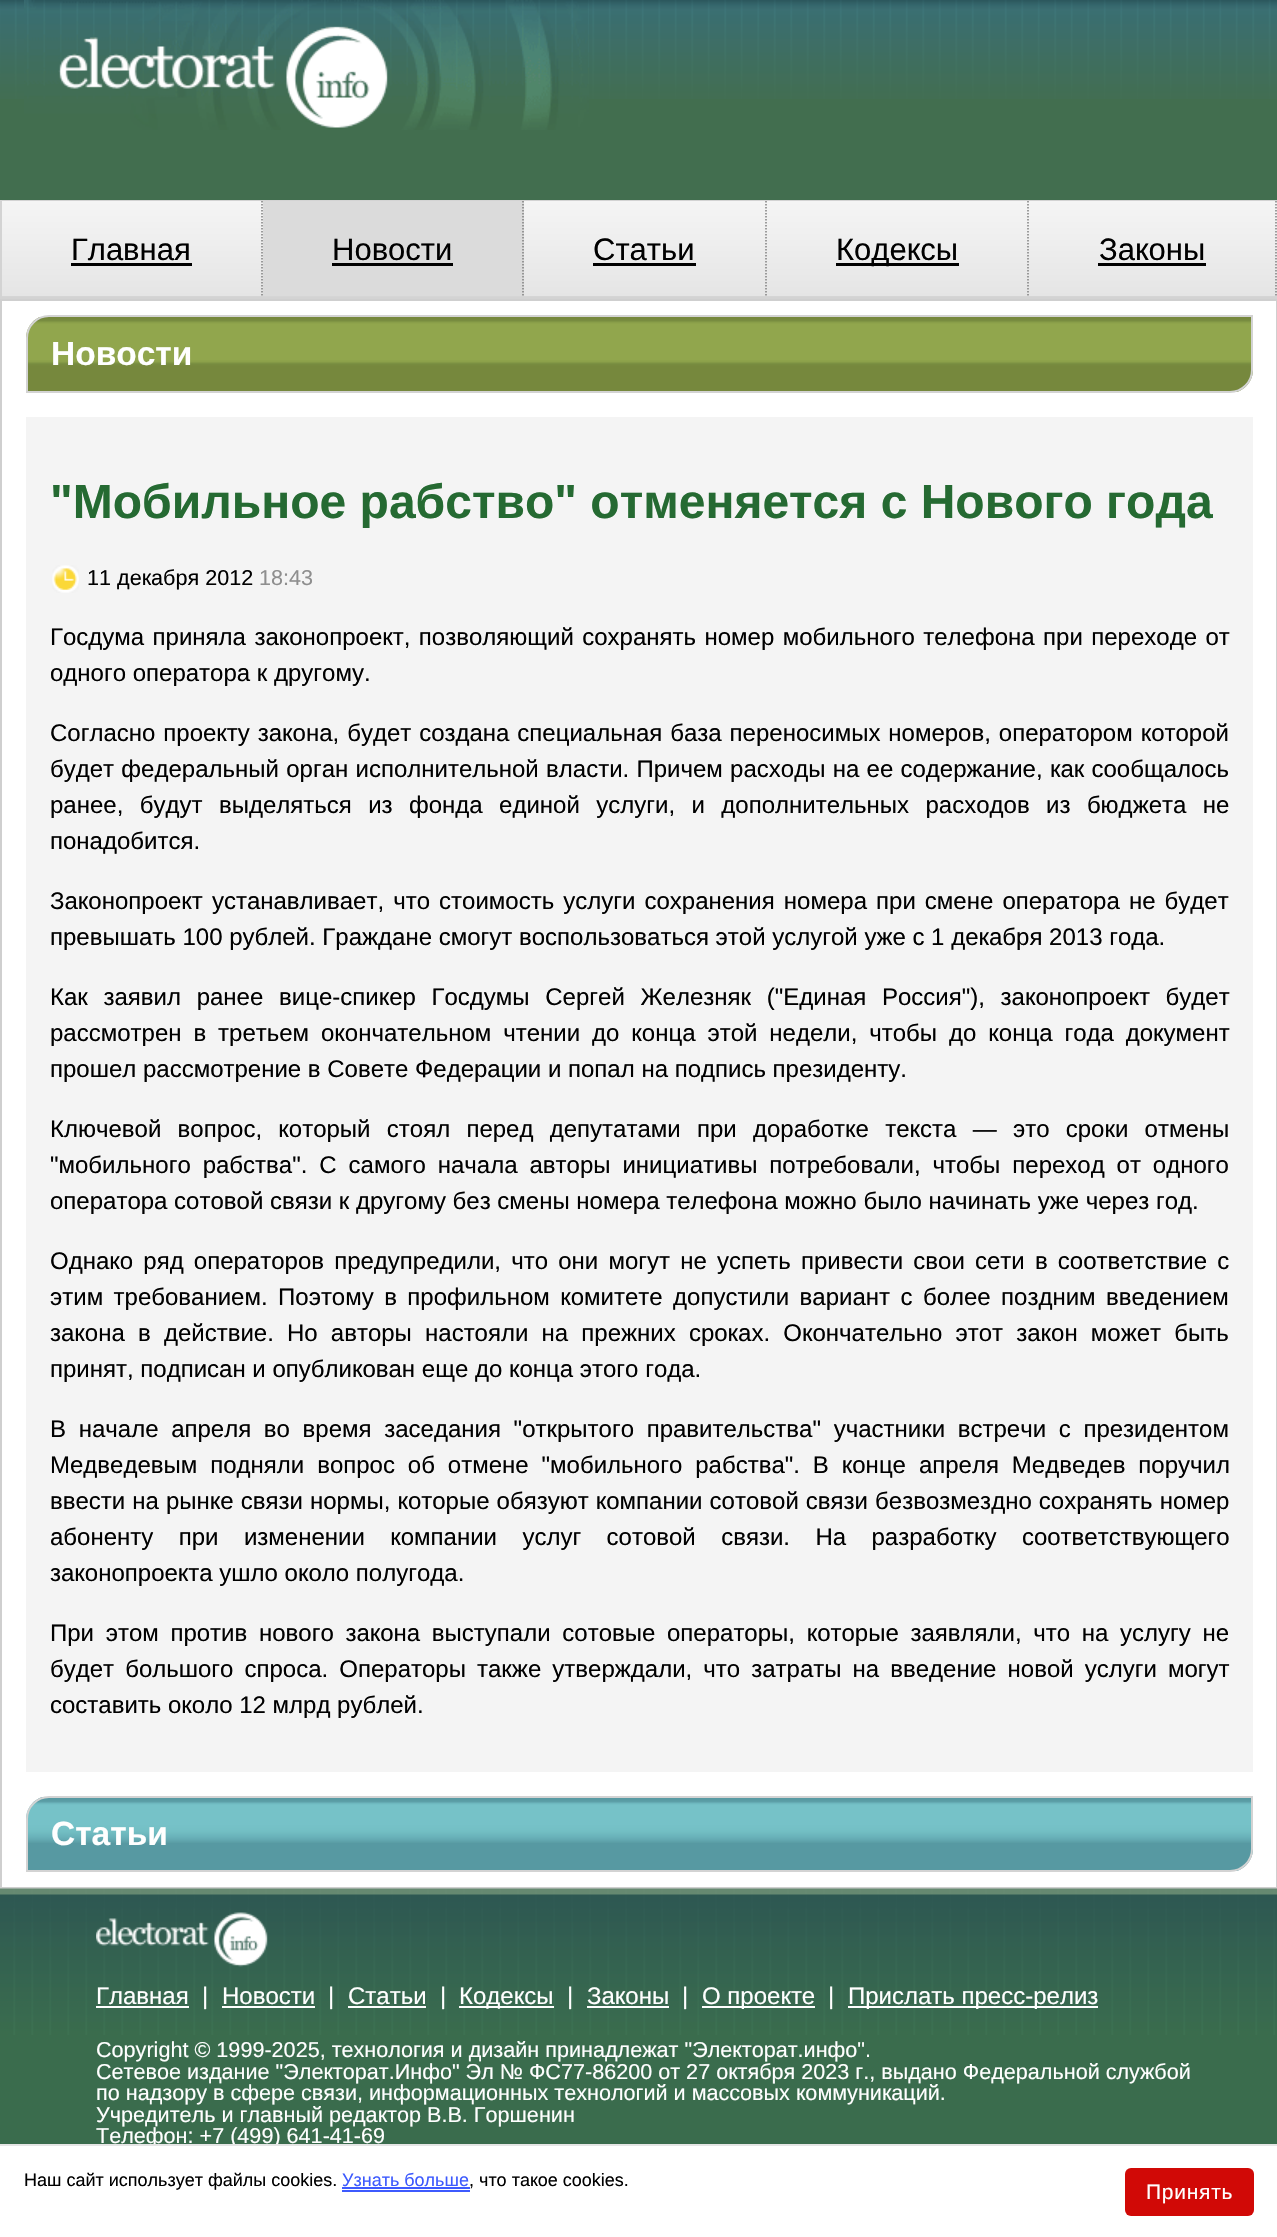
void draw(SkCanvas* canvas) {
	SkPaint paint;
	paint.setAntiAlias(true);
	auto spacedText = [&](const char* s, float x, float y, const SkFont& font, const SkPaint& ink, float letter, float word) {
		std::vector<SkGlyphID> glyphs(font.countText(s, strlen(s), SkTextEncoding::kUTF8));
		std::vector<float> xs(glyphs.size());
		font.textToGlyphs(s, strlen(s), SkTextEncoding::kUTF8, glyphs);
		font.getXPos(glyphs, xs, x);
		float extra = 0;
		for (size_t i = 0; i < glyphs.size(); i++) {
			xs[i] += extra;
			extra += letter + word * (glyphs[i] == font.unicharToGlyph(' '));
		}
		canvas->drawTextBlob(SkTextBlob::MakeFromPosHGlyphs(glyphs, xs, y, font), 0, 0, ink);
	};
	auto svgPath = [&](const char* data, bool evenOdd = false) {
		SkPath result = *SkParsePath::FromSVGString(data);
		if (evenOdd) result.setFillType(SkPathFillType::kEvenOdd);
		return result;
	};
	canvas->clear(0xff426e4f);
	canvas->drawImageRect(SkImages::DeferredFromEncodedData(SkData::MakeFromFileName("img1.png")), SkRect::MakeXYWH(0, 0, 1277, 99), SkSamplingOptions());
	canvas->drawImageRect(SkImages::DeferredFromEncodedData(SkData::MakeFromFileName("img2.png")), SkRect::MakeXYWH(24, 0, 565, 130), SkSamplingOptions());
	paint.setStroke(true);
	paint.setStrokeWidth(2);
	paint.setColor(0xffd3d3d3);
	canvas->drawRect(SkRect::MakeXYWH(1, 201, 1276, 97), paint);
	paint.setStroke(false);
	{
		const SkColor colors[] = {0xfff5f5f5, 0xffe5e5e5};
		const float stops[] = {0, 1};
		const SkPoint ends[] = {{131, 201}, {131, 296}};
		paint.setShader(SkGradientShader::MakeLinear(ends, colors, stops, 2, SkTileMode::kClamp));
		paint.setAlpha(255);
	}
	canvas->drawRect(SkRect::MakeXYWH(2, 201, 261, 95), paint);
	paint.setStroke(true);
	paint.setStrokeWidth(1.5);
	paint.setShader(nullptr);
	paint.setColor(0xff808080);
	paint.setPathEffect(SkDashPathEffect::Make({{1.5f, 1.5f}}, 0));
	canvas->drawPath(svgPath("M262 201V297"), paint);
	paint.setPathEffect(nullptr);
	paint.setStroke(false);
	paint.setColor(0xffd5d5d5);
	canvas->drawRect(SkRect::MakeXYWH(2, 296, 1275, 1), paint);
	SkFont f1(fontMgr->matchFamilyStyle("Liberation Sans", SkFontStyle::Normal()), 31);
	f1.setSubpixel(true);
	paint.setColor(0xff000000);
	canvas->drawString("Главная", 71, 260, f1, paint);
	canvas->drawRect(SkRect::MakeXYWH(71, 263, 121, 3), paint);
	paint.setColor(0xffdbdbdb);
	canvas->drawRect(SkRect::MakeXYWH(263, 201, 261, 95), paint);
	paint.setStroke(true);
	paint.setColor(0xff808080);
	paint.setPathEffect(SkDashPathEffect::Make({{1.5f, 1.5f}}, 0));
	canvas->drawPath(svgPath("M523 201V297"), paint);
	paint.setPathEffect(nullptr);
	paint.setStroke(false);
	paint.setColor(0xff000000);
	canvas->drawString("Новости", 332, 260, f1, paint);
	canvas->drawRect(SkRect::MakeXYWH(332, 263, 121, 3), paint);
	{
		const SkColor colors[] = {0xfff5f5f5, 0xffe5e5e5};
		const float stops[] = {0, 1};
		const SkPoint ends[] = {{644, 201}, {644, 296}};
		paint.setShader(SkGradientShader::MakeLinear(ends, colors, stops, 2, SkTileMode::kClamp));
		paint.setAlpha(255);
	}
	canvas->drawRect(SkRect::MakeXYWH(524, 201, 243, 95), paint);
	paint.setStroke(true);
	paint.setShader(nullptr);
	paint.setColor(0xff808080);
	paint.setPathEffect(SkDashPathEffect::Make({{1.5f, 1.5f}}, 0));
	canvas->drawPath(svgPath("M766 201V297"), paint);
	paint.setPathEffect(nullptr);
	paint.setStroke(false);
	paint.setColor(0xff000000);
	canvas->drawString("Статьи", 593, 260, f1, paint);
	canvas->drawRect(SkRect::MakeXYWH(593, 263, 103, 3), paint);
	{
		const SkColor colors[] = {0xfff5f5f5, 0xffe5e5e5};
		const float stops[] = {0, 1};
		const SkPoint ends[] = {{897, 201}, {897, 296}};
		paint.setShader(SkGradientShader::MakeLinear(ends, colors, stops, 2, SkTileMode::kClamp));
		paint.setAlpha(255);
	}
	canvas->drawRect(SkRect::MakeXYWH(767, 201, 262, 95), paint);
	paint.setStroke(true);
	paint.setShader(nullptr);
	paint.setColor(0xff808080);
	paint.setPathEffect(SkDashPathEffect::Make({{1.5f, 1.5f}}, 0));
	canvas->drawPath(svgPath("M1028 201V297"), paint);
	paint.setPathEffect(nullptr);
	paint.setStroke(false);
	paint.setColor(0xff000000);
	canvas->drawRect(SkRect::MakeXYWH(836, 263, 123, 3), paint);
	canvas->drawString("Кодексы", 836, 260, f1, paint);
	{
		const SkColor colors[] = {0xfff5f5f5, 0xffe5e5e5};
		const float stops[] = {0, 1};
		const SkPoint ends[] = {{1152, 201}, {1152, 296}};
		paint.setShader(SkGradientShader::MakeLinear(ends, colors, stops, 2, SkTileMode::kClamp));
		paint.setAlpha(255);
	}
	canvas->drawRect(SkRect::MakeXYWH(1029, 201, 248, 95), paint);
	paint.setStroke(true);
	paint.setShader(nullptr);
	paint.setColor(0xff808080);
	paint.setPathEffect(SkDashPathEffect::Make({{1.5f, 1.5f}}, 0));
	canvas->drawPath(svgPath("M1276 201V297"), paint);
	paint.setPathEffect(nullptr);
	paint.setStroke(false);
	paint.setColor(0xff000000);
	canvas->drawString("Законы", 1099, 260, f1, paint);
	canvas->drawRect(SkRect::MakeXYWH(1098, 263, 108, 3), paint);
	paint.setColor(0xffffffff);
	canvas->drawRect(SkRect::MakeXYWH(1, 300, 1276, 1588), paint);
	paint.setStroke(true);
	paint.setStrokeWidth(2);
	paint.setColor(0xffcfcfcf);
	canvas->drawRect(SkRect::MakeXYWH(1, 300, 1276, 1588), paint);
	canvas->save();
	canvas->clipPath(svgPath("M49 315H1253V370C1253 382.5 1242.5 393 1230 393H26V338C26 325.5 36.5 315 49 315Z"), true);
	paint.setStroke(false);
	{
		const SkColor colors[] = {0xff76883d, 0xff76883d, 0xff788c40, 0xff8ca14a, 0xff91a64d, 0xff91a64d, 0xff8ca14a, 0xff788c40, 0xff76883d, 0xff76883d};
		const float stops[] = {0, 0.03, 0.06, 0.09, 0.11, 0.57, 0.6, 0.63, 0.66, 0.99};
		const SkPoint ends[] = {{639, 316}, {639, 392}};
		paint.setShader(SkGradientShader::MakeLinear(ends, colors, stops, 10, SkTileMode::kClamp));
		paint.setAlpha(255);
	}
	canvas->drawRect(SkRect::MakeXYWH(26, 317, 1227, 75), paint);
	canvas->restore();
	paint.setStroke(true);
	paint.setShader(nullptr);
	paint.setColor(0xffd3d3d3);
	canvas->drawPath(svgPath("M49 316H1252V370C1252 382 1242 392 1230 392H27V338C27 326 37 316 49 316Z"), paint);
	SkFont f2(fontMgr->matchFamilyStyle("Liberation Sans", SkFontStyle::Bold()), 33.5);
	f2.setSubpixel(true);
	paint.setStroke(false);
	paint.setColor(0xffffffff);
	canvas->drawString("Новости", 51, 365, f2, paint);
	paint.setColor(0xfff4f4f4);
	canvas->drawRect(SkRect::MakeXYWH(26, 417, 1227, 1355), paint);
	SkFont f3(fontMgr->matchFamilyStyle("Liberation Sans", SkFontStyle::Bold()), 48);
	f3.setSubpixel(true);
	paint.setColor(0xff256a32);
	canvas->drawString("\"Мобильное рабство\" отменяется с Нового года", 50, 518, f3, paint);
	canvas->drawImageRect(SkImages::DeferredFromEncodedData(SkData::MakeFromFileName("img3.png")), SkRect::MakeXYWH(52, 565, 27, 28), SkSamplingOptions());
	SkFont f4(fontMgr->matchFamilyStyle("Liberation Sans", SkFontStyle::Normal()), 21.6);
	f4.setSubpixel(true);
	paint.setColor(0xff000000);
	canvas->drawString("11 декабря 2012", 87, 585, f4, paint);
	paint.setColor(0xff8e8e8e);
	canvas->drawString("18:43", 259, 585, f4, paint);
	SkFont f5(fontMgr->matchFamilyStyle("Liberation Sans", SkFontStyle::Normal()), 24);
	f5.setSubpixel(true);
	paint.setColor(0xff000000);
	spacedText("Госдума приняла законопроект, позволяющий сохранять номер мобильного телефона при переходе от", 50, 645, f5, paint, 0, 1.75);
	canvas->drawString("одного оператора к другому.", 50, 681, f5, paint);
	spacedText("Согласно проекту закона, будет создана специальная база переносимых номеров, оператором которой", 50, 741, f5, paint, 0, 1.25);
	spacedText("будет федеральный орган исполнительной власти. Причем расходы на ее содержание, как сообщалось", 50, 777, f5, paint, 0, 0.6);
	spacedText("ранее, будут выделяться из фонда единой услуги, и дополнительных расходов из бюджета не", 50, 813, f5, paint, 0, 9.75);
	canvas->drawString("понадобится.", 50, 849, f5, paint);
	spacedText("Законопроект устанавливает, что стоимость услуги сохранения номера при смене оператора не будет", 50, 909, f5, paint, 0, 2.4);
	canvas->drawString("превышать 100 рублей. Граждане смогут воспользоваться этой услугой уже с 1 декабря 2013 года.", 50, 945, f5, paint);
	spacedText("Как заявил ранее вице-спикер Госдумы Сергей Железняк (\"Единая Россия\"), законопроект будет", 50, 1005, f5, paint, 0, 9);
	spacedText("рассмотрен в третьем окончательном чтении до конца этой недели, чтобы до конца года документ", 50, 1041, f5, paint, 0, 5.25);
	canvas->drawString("прошел рассмотрение в Совете Федерации и попал на подпись президенту.", 50, 1077, f5, paint);
	spacedText("Ключевой вопрос, который стоял перед депутатами при доработке текста — это сроки отмены", 50, 1137, f5, paint, 0, 9.6);
	spacedText("\"мобильного рабства\". С самого начала авторы инициативы потребовали, чтобы переход от одного", 50, 1173, f5, paint, 0, 5.25);
	canvas->drawString("оператора сотовой связи к другому без смены номера телефона можно было начинать уже через год.", 50, 1209, f5, paint);
	spacedText("Однако ряд операторов предупредили, что они могут не успеть привести свои сети в соответствие с", 50, 1269, f5, paint, 0, 3.5);
	spacedText("этим требованием. Поэтому в профильном комитете допустили вариант с более поздним введением", 50, 1305, f5, paint, 0, 3.75);
	spacedText("закона в действие. Но авторы настояли на прежних сроках. Окончательно этот закон может быть", 50, 1341, f5, paint, 0, 6.5);
	canvas->drawString("принят, подписан и опубликован еще до конца этого года.", 50, 1377, f5, paint);
	spacedText("В начале апреля во время заседания \"открытого правительства\" участники встречи с президентом", 50, 1437, f5, paint, 0, 6);
	spacedText("Медведевым подняли вопрос об отмене \"мобильного рабства\". В конце апреля Медведев поручил", 50, 1473, f5, paint, 0, 6.25);
	spacedText("ввести на рынке связи нормы, которые обязуют компании сотовой связи безвозмездно сохранять номер", 50, 1509, f5, paint, 0, 0.4);
	spacedText("абоненту при изменении компании услуг сотовой связи. На разработку соответствующего", 50, 1545, f5, paint, 0, 18.75);
	canvas->drawString("законопроекта ушло около полугода.", 50, 1581, f5, paint);
	spacedText("При этом против нового закона выступали сотовые операторы, которые заявляли, что на услугу не", 50, 1641, f5, paint, 0, 5);
	spacedText("будет большого спроса. Операторы также утверждали, что затраты на введение новой услуги могут", 50, 1677, f5, paint, 0, 4.4);
	canvas->drawString("составить около 12 млрд рублей.", 50, 1713, f5, paint);
	canvas->save();
	canvas->clipPath(svgPath("M49 1796H1253V1849C1253 1861.5 1242.5 1872 1230 1872H26V1819C26 1806.5 36.5 1796 49 1796Z"), true);
	{
		const SkColor colors[] = {0xff5799a2, 0xff5799a2, 0xff5b9ea6, 0xff6fbac1, 0xff76c2c8, 0xff76c2c8, 0xff73bfc4, 0xff69b2b9, 0xff65abb3, 0xff5799a2, 0xff5799a2};
		const float stops[] = {0, 0.03, 0.06, 0.09, 0.11, 0.37, 0.46, 0.54, 0.57, 0.63, 0.99};
		const SkPoint ends[] = {{639, 1797}, {639, 1871}};
		paint.setShader(SkGradientShader::MakeLinear(ends, colors, stops, 11, SkTileMode::kClamp));
		paint.setAlpha(255);
	}
	canvas->drawRect(SkRect::MakeXYWH(26, 1797, 1227, 74), paint);
	canvas->restore();
	paint.setStroke(true);
	paint.setShader(nullptr);
	paint.setColor(0xffd3d3d3);
	canvas->drawPath(svgPath("M49 1797H1252V1849C1252 1861 1242 1871 1230 1871H27V1819C27 1807 37 1797 49 1797Z"), paint);
	paint.setStroke(false);
	paint.setColor(0xffffffff);
	canvas->drawString("Статьи", 51, 1845, f2, paint);
	paint.setColor(0xff3a6c4d);
	canvas->drawRect(SkRect::MakeXYWH(0, 2035, 1277, 109), paint);
	canvas->drawImageRect(SkImages::DeferredFromEncodedData(SkData::MakeFromFileName("img4.png")), SkRect::MakeXYWH(0, 1888, 1277, 147), SkSamplingOptions());
	canvas->drawImageRect(SkImages::DeferredFromEncodedData(SkData::MakeFromFileName("img5.png")), SkRect::MakeXYWH(96, 1912, 172, 55), SkSamplingOptions());
	paint.setColor(0xffffffff);
	canvas->drawString("Главная", 96, 2004, f5, paint);
	canvas->drawRect(SkRect::MakeXYWH(96, 2006, 93, 2), paint);
	canvas->drawString("|", 202, 2004, f5, paint);
	canvas->drawString("Новости", 222, 2004, f5, paint);
	canvas->drawRect(SkRect::MakeXYWH(222, 2006, 93, 2), paint);
	canvas->drawString("|", 328, 2004, f5, paint);
	canvas->drawString("Статьи", 348, 2004, f5, paint);
	canvas->drawRect(SkRect::MakeXYWH(348, 2006, 78, 2), paint);
	canvas->drawString("|", 440, 2004, f5, paint);
	canvas->drawRect(SkRect::MakeXYWH(459, 2006, 95, 2), paint);
	canvas->drawString("Кодексы", 459, 2004, f5, paint);
	canvas->drawString("|", 567, 2004, f5, paint);
	canvas->drawString("Законы", 587, 2004, f5, paint);
	canvas->drawRect(SkRect::MakeXYWH(587, 2006, 82, 2), paint);
	canvas->drawString("|", 682, 2004, f5, paint);
	canvas->drawRect(SkRect::MakeXYWH(702, 2006, 113, 2), paint);
	canvas->drawString("О проекте", 702, 2004, f5, paint);
	canvas->drawString("|", 828, 2004, f5, paint);
	canvas->drawRect(SkRect::MakeXYWH(848, 2006, 250, 2), paint);
	canvas->drawString("Прислать пресс-релиз", 848, 2004, f5, paint);
	canvas->drawString("Copyright © 1999-2025, технология и дизайн принадлежат \"Электорат.инфо\".", 96, 2057, f4, paint);
	canvas->drawString("Сетевое издание \"Электорат.Инфо\" Эл № ФС77-86200 от 27 октября 2023 г., выдано Федеральной службой", 96, 2079, f4, paint);
	canvas->drawString("по надзору в сфере связи, информационных технологий и массовых коммуникаций.", 96, 2100, f4, paint);
	canvas->drawString("Учредитель и главный редактор В.В. Горшенин", 96, 2122, f4, paint);
	canvas->drawString("Телефон: +7 (499) 641-41-69", 96, 2143, f4, paint);
	canvas->drawRect(SkRect::MakeXYWH(0, 2146, 1277, 91), paint);
	paint.setColor(0xffe5e5e5);
	canvas->drawRect(SkRect::MakeXYWH(0, 2144, 1277, 2), paint);
	SkFont f6(fontMgr->matchFamilyStyle("Liberation Sans", SkFontStyle::Normal()), 18);
	f6.setSubpixel(true);
	paint.setColor(0xff000000);
	canvas->drawString("Наш сайт использует файлы cookies.", 24, 2186, f6, paint);
	paint.setColor(0xff3d5afe);
	canvas->drawString("Узнать больше", 342, 2186, f6, paint);
	canvas->drawRect(SkRect::MakeXYWH(342, 2190, 128, 2), paint);
	canvas->drawRect(SkRect::MakeXYWH(342, 2187, 128, 2), paint);
	paint.setColor(0xff000000);
	canvas->drawString(", что такое cookies.", 469, 2186, f6, paint);
	paint.setColor(0xffd10906);
	canvas->drawRoundRect(SkRect::MakeXYWH(1125, 2168, 129, 48), 6, 6, paint);
	SkFont f7(fontMgr->matchFamilyStyle("Liberation Sans", SkFontStyle::Normal()), 21);
	f7.setSubpixel(true);
	paint.setColor(0xffffffff);
	spacedText("Принять", 1146, 2199, f7, paint, 0.75, 0);
}
